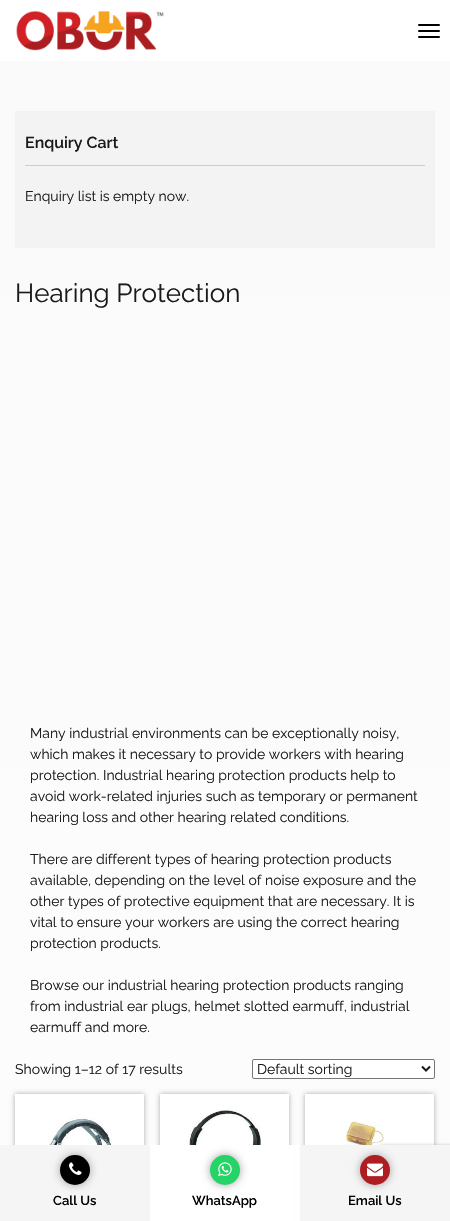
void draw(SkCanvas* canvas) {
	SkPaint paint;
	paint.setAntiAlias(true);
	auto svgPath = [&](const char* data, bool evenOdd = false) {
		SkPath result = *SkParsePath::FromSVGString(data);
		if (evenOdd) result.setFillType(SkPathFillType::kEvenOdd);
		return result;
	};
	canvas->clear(0xffffffff);
	canvas->drawImageRect(SkImages::DeferredFromEncodedData(SkData::MakeFromFileName("img1.png")), SkRect::MakeXYWH(16, 10, 148, 41), SkSamplingOptions());
	paint.setColor(0xff000000);
	canvas->drawRoundRect(SkRect::MakeXYWH(418, 24, 22, 2), 1, 1, paint);
	canvas->drawRoundRect(SkRect::MakeXYWH(418, 30, 22, 2), 1, 1, paint);
	canvas->drawRoundRect(SkRect::MakeXYWH(418, 36, 22, 2), 1, 1, paint);
	{
		const SkColor colors[] = {0xfffafafa, 0xffffffff};
		const float stops[] = {0, 0.95};
		const SkPoint ends[] = {{225, 61}, {225, 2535}};
		paint.setShader(SkGradientShader::MakeLinear(ends, colors, stops, 2, SkTileMode::kClamp));
		paint.setAlpha(255);
	}
	canvas->drawRect(SkRect::MakeXYWH(0, 61, 450, 1084), paint);
	paint.setShader(nullptr);
	paint.setColor(0xfff3f3f3);
	canvas->drawRect(SkRect::MakeXYWH(15, 111, 420, 137), paint);
	paint.setColor(0xffcccccc);
	canvas->drawRect(SkRect::MakeXYWH(25, 165, 400, 1), paint);
	SkFont f1(fontMgr->matchFamilyStyle("Raleway", SkFontStyle(100, SkFontStyle::kNormal_Width, SkFontStyle::kUpright_Slant)), 16);
	f1.setSubpixel(true);
	paint.setColor(0xff1a1a1a);
	canvas->drawString("Enquiry Cart", 25, 148, f1, paint);
	SkFont f2(fontMgr->matchFamilyStyle("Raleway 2", SkFontStyle(100, SkFontStyle::kNormal_Width, SkFontStyle::kUpright_Slant)), 14);
	f2.setSubpixel(true);
	canvas->drawString("Enquiry list is empty now.", 25, 201, f2, paint);
	SkFont f3(fontMgr->matchFamilyStyle("Raleway 2", SkFontStyle(100, SkFontStyle::kNormal_Width, SkFontStyle::kUpright_Slant)), 26);
	f3.setSubpixel(true);
	canvas->drawString("Hearing Protection", 15, 302, f3, paint);
	canvas->drawString("Many industrial environments can be exceptionally noisy,", 30, 738, f2, paint);
	canvas->drawString("which makes it necessary to provide workers with hearing", 30, 759, f2, paint);
	canvas->drawString("protection. Industrial hearing protection products help to", 30, 780, f2, paint);
	canvas->drawString("avoid work-related injuries such as temporary or permanent", 30, 801, f2, paint);
	canvas->drawString("hearing loss and other hearing related conditions.", 30, 822, f2, paint);
	canvas->drawString("There are different types of hearing protection products", 30, 864, f2, paint);
	canvas->drawString("available, depending on the level of noise exposure and the", 30, 885, f2, paint);
	canvas->drawString("other types of protective equipment that are necessary. It is", 30, 906, f2, paint);
	canvas->drawString("vital to ensure your workers are using the correct hearing", 30, 927, f2, paint);
	canvas->drawString("protection products.", 30, 948, f2, paint);
	canvas->drawString("Browse our industrial hearing protection products ranging", 30, 990, f2, paint);
	canvas->drawString("from industrial ear plugs, helmet slotted earmuff, industrial", 30, 1011, f2, paint);
	canvas->drawString("earmuff and more.", 30, 1032, f2, paint);
	canvas->drawString("Showing 1–12 of 17 results", 15, 1074, f2, paint);
	paint.setColor(0xffffffff);
	canvas->drawRoundRect(SkRect::MakeXYWH(252.5, 1059.5, 182, 19), 1.5, 1.5, paint);
	paint.setStroke(true);
	paint.setStrokeWidth(1);
	paint.setColor(0xff767676);
	canvas->drawRoundRect(SkRect::MakeXYWH(252.5, 1059.5, 182, 19), 1.5, 1.5, paint);
	paint.setStrokeWidth(2);
	paint.setColor(0xff1a1a1a);
	canvas->drawPath(svgPath("M422 1066.5L426 1070.5L430 1066.5"), paint);
	paint.setStroke(false);
	canvas->drawString("Default sorting", 257, 1074, f2, paint);
	paint.setColor(0xffadabab);
	paint.setMaskFilter(SkMaskFilter::MakeBlur(kNormal_SkBlurStyle, 2.5));
	canvas->drawRect(SkRect::MakeXYWH(15, 1094, 129, 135), paint);
	paint.setMaskFilter(nullptr);
	paint.setColor(0xffffffff);
	canvas->drawRect(SkRect::MakeXYWH(15, 1094, 129, 51), paint);
	canvas->drawImageRect(SkImages::DeferredFromEncodedData(SkData::MakeFromFileName("img2.png")), SkRect::MakeXYWH(34, 1116, 100, 29), SkSamplingOptions());
	paint.setColor(0xffadabab);
	paint.setMaskFilter(SkMaskFilter::MakeBlur(kNormal_SkBlurStyle, 2.5));
	canvas->drawRect(SkRect::MakeXYWH(160, 1094, 129, 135), paint);
	paint.setMaskFilter(nullptr);
	paint.setColor(0xffffffff);
	canvas->drawRect(SkRect::MakeXYWH(160, 1094, 129, 51), paint);
	canvas->drawImageRect(SkImages::DeferredFromEncodedData(SkData::MakeFromFileName("img3.png")), SkRect::MakeXYWH(188, 1109, 91, 36), SkSamplingOptions());
	paint.setColor(0xffadabab);
	paint.setMaskFilter(SkMaskFilter::MakeBlur(kNormal_SkBlurStyle, 2.5));
	canvas->drawRect(SkRect::MakeXYWH(305, 1094, 129, 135), paint);
	paint.setMaskFilter(nullptr);
	paint.setColor(0xffffffff);
	canvas->drawRect(SkRect::MakeXYWH(305, 1094, 129, 51), paint);
	canvas->drawImageRect(SkImages::DeferredFromEncodedData(SkData::MakeFromFileName("img4.png")), SkRect::MakeXYWH(319, 1121, 105, 24), SkSamplingOptions());
	paint.setColor(0xfff5f5f5);
	canvas->drawRect(SkRect::MakeXYWH(0, 1145, 150, 76), paint);
	paint.setColor(0xffa1a1a1);
	paint.setMaskFilter(SkMaskFilter::MakeBlur(kNormal_SkBlurStyle, 4));
	canvas->drawRoundRect(SkRect::MakeXYWH(60, 1155, 30, 30), 15, 15, paint);
	paint.setMaskFilter(nullptr);
	paint.setColor(0xff000000);
	canvas->drawCircle(75, 1170, 15, paint);
	canvas->drawImageRect(SkImages::DeferredFromEncodedData(SkData::MakeFromFileName("img5.png")), SkRect::MakeXYWH(69, 1162, 13, 13), SkSamplingOptions());
	SkFont f4(fontMgr->matchFamilyStyle("Raleway", SkFontStyle(100, SkFontStyle::kNormal_Width, SkFontStyle::kUpright_Slant)), 13);
	f4.setSubpixel(true);
	canvas->drawString("Call Us", 53, 1205, f4, paint);
	paint.setColor(0xffffffff);
	canvas->drawRect(SkRect::MakeXYWH(155, 1145, 139, 76), paint);
	paint.setColor(0xffa1a1a1);
	paint.setMaskFilter(SkMaskFilter::MakeBlur(kNormal_SkBlurStyle, 4));
	canvas->drawRoundRect(SkRect::MakeXYWH(210, 1155, 30, 30), 15, 15, paint);
	paint.setMaskFilter(nullptr);
	paint.setColor(0xff25d366);
	canvas->drawCircle(225, 1170, 15, paint);
	canvas->drawImageRect(SkImages::DeferredFromEncodedData(SkData::MakeFromFileName("img6.png")), SkRect::MakeXYWH(218, 1162, 14, 15), SkSamplingOptions());
	paint.setColor(0xff000000);
	canvas->drawString("WhatsApp", 192, 1205, f4, paint);
	paint.setColor(0xff808080);
	paint.setMaskFilter(SkMaskFilter::MakeBlur(kNormal_SkBlurStyle, 2.5));
	canvas->drawRoundRect(SkRect::MakeXYWH(380, 1147, 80, 60), 2, 2, paint);
	paint.setMaskFilter(nullptr);
	paint.setColor(0xfff5f5f5);
	canvas->drawRect(SkRect::MakeXYWH(300, 1145, 150, 76), paint);
	paint.setColor(0xffa1a1a1);
	paint.setMaskFilter(SkMaskFilter::MakeBlur(kNormal_SkBlurStyle, 4));
	canvas->drawRoundRect(SkRect::MakeXYWH(360, 1155, 30, 30), 15, 15, paint);
	paint.setMaskFilter(nullptr);
	paint.setColor(0xffae1d22);
	canvas->drawCircle(375, 1170, 15, paint);
	canvas->drawImageRect(SkImages::DeferredFromEncodedData(SkData::MakeFromFileName("img7.png")), SkRect::MakeXYWH(367, 1163, 16, 14), SkSamplingOptions());
	paint.setColor(0xff000000);
	canvas->drawString("Email Us", 348, 1205, f4, paint);
}
